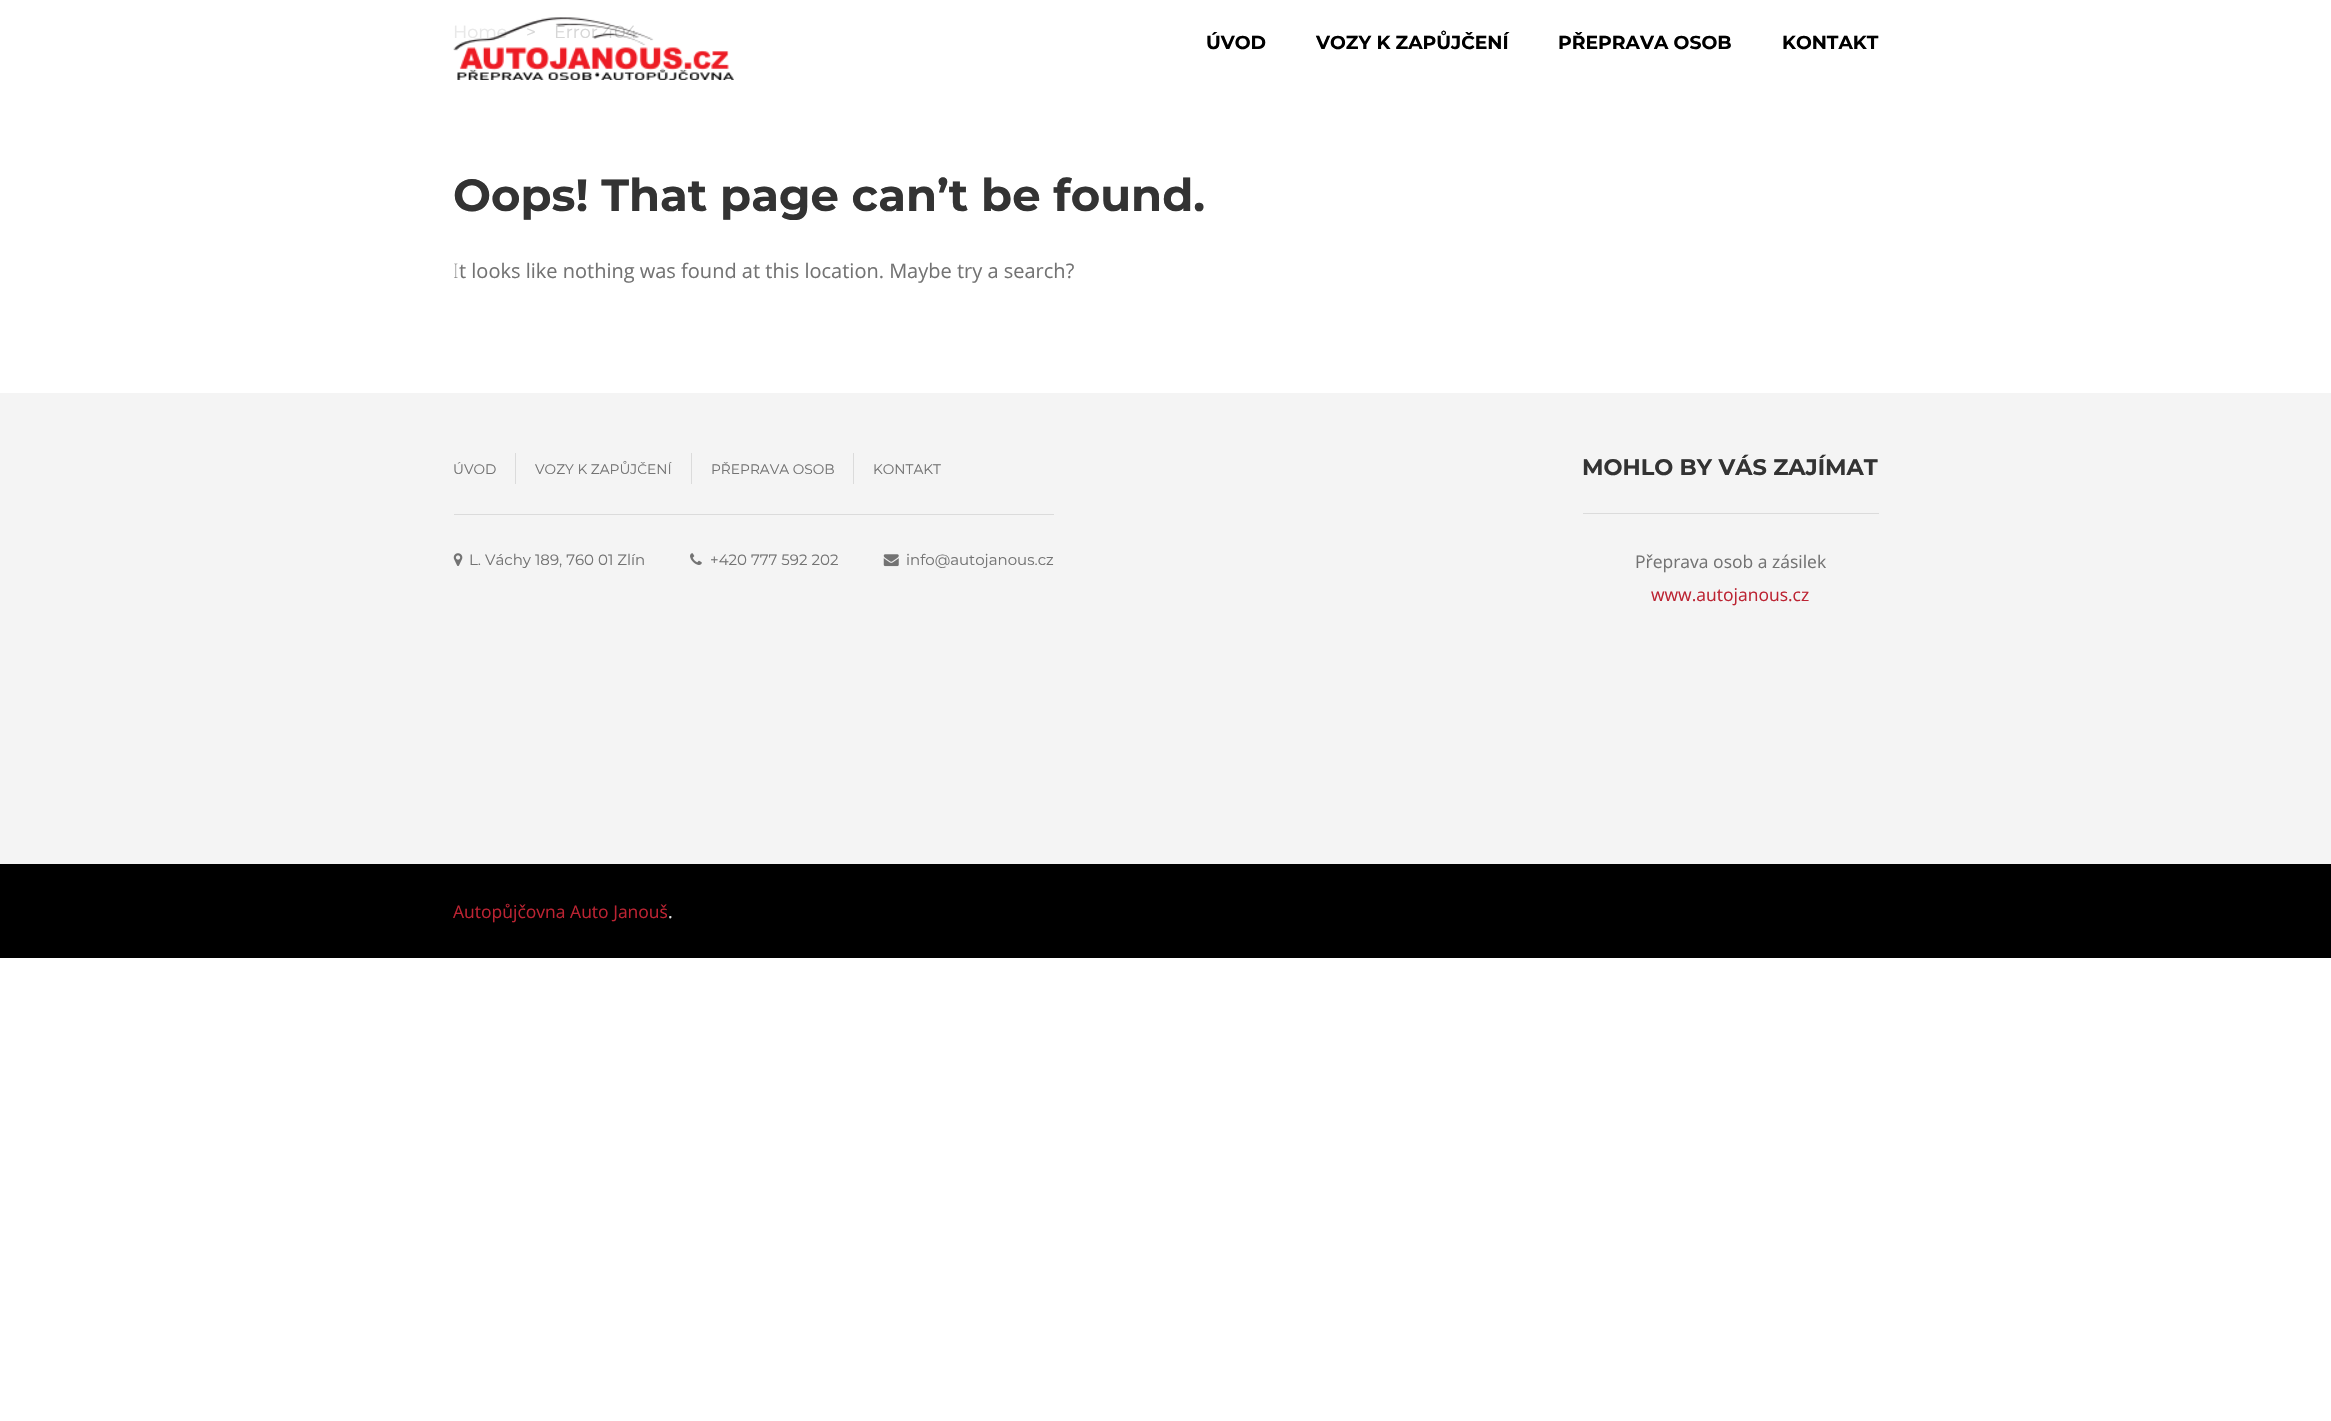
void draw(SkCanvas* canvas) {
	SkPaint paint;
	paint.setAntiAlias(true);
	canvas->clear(0xffffffff);
	SkFont f1(fontMgr->matchFamilyStyle("Montserrat", SkFontStyle::Normal()), 17.5);
	f1.setSubpixel(true);
	paint.setColor(0xffe8e8e8);
	canvas->drawString("Home", 453, 38, f1, paint);
	paint.setColor(0xffd6d6d6);
	canvas->drawString(">", 526, 38, f1, paint);
	canvas->drawString("Error 404", 554, 38, f1, paint);
	canvas->drawImageRect(SkImages::DeferredFromEncodedData(SkData::MakeFromFileName("img1.png")), SkRect::MakeXYWH(453, 17, 281, 63), SkSamplingOptions());
	SkFont f2(fontMgr->matchFamilyStyle("Montserrat", SkFontStyle::Bold()), 18.75);
	f2.setSubpixel(true);
	paint.setColor(0xff000000);
	canvas->drawString("ÚVOD", 1206, 49, f2, paint);
	canvas->drawString("VOZY K ZAPŮJČENÍ", 1316, 49, f2, paint);
	canvas->drawString("PŘEPRAVA OSOB", 1558, 49, f2, paint);
	canvas->drawString("KONTAKT", 1782, 49, f2, paint);
	SkFont f3(fontMgr->matchFamilyStyle("Montserrat", SkFontStyle::Bold()), 45);
	f3.setSubpixel(true);
	paint.setColor(0xff333333);
	canvas->drawString("Oops! That page can’t be found.", 453, 211, f3, paint);
	SkFont f4(fontMgr->matchFamilyStyle("Noto Sans", SkFontStyle(100, SkFontStyle::kNormal_Width, SkFontStyle::kUpright_Slant)), 20);
	f4.setSubpixel(true);
	paint.setColor(0xff737373);
	canvas->drawString("I", 453, 278, f4, paint);
	SkFont f5(fontMgr->matchFamilyStyle("Open Sans", SkFontStyle::Normal()), 20);
	f5.setSubpixel(true);
	canvas->drawString("t looks like nothing was found at this location. Maybe try a search?", 459, 278, f5, paint);
	paint.setColor(0xfff4f4f4);
	canvas->drawRect(SkRect::MakeXYWH(0, 393, 2331, 471), paint);
	paint.setColor(0xffdbdbdb);
	canvas->drawRect(SkRect::MakeXYWH(515, 453, 1, 31), paint);
	SkFont f6(fontMgr->matchFamilyStyle("Montserrat", SkFontStyle::Normal()), 13.75);
	f6.setSubpixel(true);
	paint.setColor(0xff737373);
	canvas->drawString("ÚVOD", 453, 474, f6, paint);
	paint.setColor(0xffdbdbdb);
	canvas->drawRect(SkRect::MakeXYWH(691, 453, 1, 31), paint);
	paint.setColor(0xff737373);
	canvas->drawString("VOZY K ZAPŮJČENÍ", 535, 474, f6, paint);
	paint.setColor(0xffdbdbdb);
	canvas->drawRect(SkRect::MakeXYWH(853, 453, 1, 31), paint);
	paint.setColor(0xff737373);
	canvas->drawString("PŘEPRAVA OSOB", 711, 474, f6, paint);
	canvas->drawString("KONTAKT", 873, 474, f6, paint);
	paint.setColor(0xffdbdbdb);
	canvas->drawRect(SkRect::MakeXYWH(454, 514, 600, 1), paint);
	canvas->drawImageRect(SkImages::DeferredFromEncodedData(SkData::MakeFromFileName("img2.png")), SkRect::MakeXYWH(453, 553, 10, 13), SkSamplingOptions());
	SkFont f7(fontMgr->matchFamilyStyle("Montserrat", SkFontStyle::Normal()), 15);
	f7.setSubpixel(true);
	paint.setColor(0xff737373);
	canvas->drawString("L. Váchy 189, 760 01 Zlín", 469, 565, f7, paint);
	canvas->drawImageRect(SkImages::DeferredFromEncodedData(SkData::MakeFromFileName("img3.png")), SkRect::MakeXYWH(690, 553, 12, 12), SkSamplingOptions());
	canvas->drawString("+420 777 592 202", 710, 565, f7, paint);
	canvas->drawImageRect(SkImages::DeferredFromEncodedData(SkData::MakeFromFileName("img4.png")), SkRect::MakeXYWH(883, 554, 16, 13), SkSamplingOptions());
	canvas->drawString("info@autojanous.cz", 906, 565, f7, paint);
	SkFont f8(fontMgr->matchFamilyStyle("Montserrat", SkFontStyle::Bold()), 22.5);
	f8.setSubpixel(true);
	paint.setColor(0xff333333);
	canvas->drawString("MOHLO BY VÁS ZAJÍMAT", 1582, 475, f8, paint);
	paint.setColor(0xffdbdbdb);
	canvas->drawRect(SkRect::MakeXYWH(1583, 513, 296, 1), paint);
	SkFont f9(fontMgr->matchFamilyStyle("Open Sans", SkFontStyle::Normal()), 17.5);
	f9.setSubpixel(true);
	paint.setColor(0xff737373);
	canvas->drawString("Přeprava osob a zásilek", 1635, 568, f9, paint);
	paint.setColor(0xffbc2332);
	canvas->drawString("www.autojanous.cz", 1651, 601, f9, paint);
	paint.setColor(0xff000000);
	canvas->drawRect(SkRect::MakeXYWH(0, 864, 2331, 94), paint);
	paint.setColor(0xffbc2332);
	canvas->drawString("Autopůjčovna Auto Janouš", 453, 918, f9, paint);
	paint.setColor(0xffe8e8e8);
	canvas->drawString(".", 668, 918, f9, paint);
}
